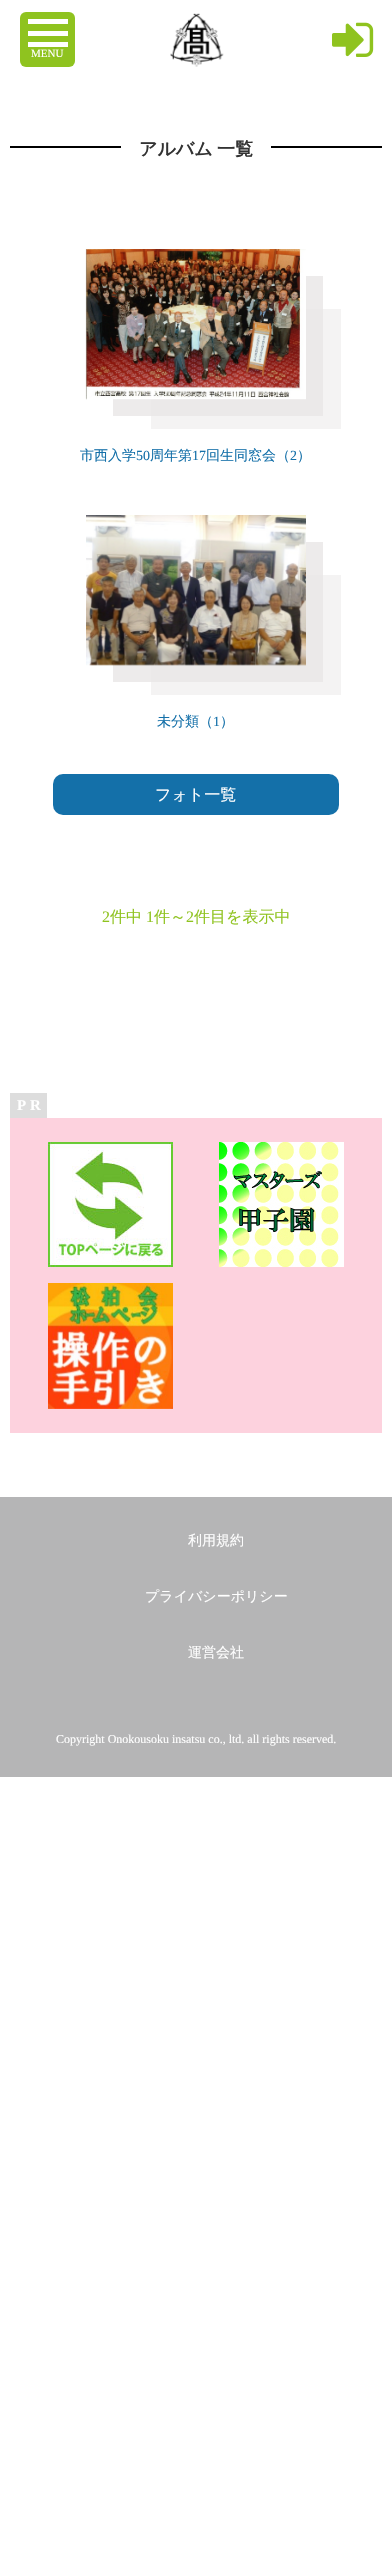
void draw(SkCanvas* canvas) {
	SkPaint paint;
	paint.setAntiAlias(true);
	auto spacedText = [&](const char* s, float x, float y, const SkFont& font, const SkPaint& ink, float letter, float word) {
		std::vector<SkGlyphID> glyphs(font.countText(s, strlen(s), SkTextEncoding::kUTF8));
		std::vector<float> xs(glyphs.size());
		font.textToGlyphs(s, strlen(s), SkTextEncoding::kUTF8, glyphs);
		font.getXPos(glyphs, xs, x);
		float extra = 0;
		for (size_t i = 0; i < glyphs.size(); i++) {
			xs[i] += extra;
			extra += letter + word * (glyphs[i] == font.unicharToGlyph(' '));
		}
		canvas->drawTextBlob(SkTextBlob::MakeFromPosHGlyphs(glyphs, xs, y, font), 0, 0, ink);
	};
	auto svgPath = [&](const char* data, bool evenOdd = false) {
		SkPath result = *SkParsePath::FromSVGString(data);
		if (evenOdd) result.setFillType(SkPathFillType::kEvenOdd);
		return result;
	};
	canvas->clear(0xffffffff);
	paint.setColor(0xff8fc31f);
	canvas->drawRoundRect(SkRect::MakeXYWH(20, 12, 55, 55), 6, 6, paint);
	paint.setColor(0xffffffff);
	canvas->drawRect(SkRect::MakeXYWH(28, 19, 40, 5), paint);
	canvas->drawRect(SkRect::MakeXYWH(28, 31, 40, 5), paint);
	canvas->drawRect(SkRect::MakeXYWH(28, 42, 40, 5), paint);
	SkFont f1(fontMgr->matchFamilyStyle("Liberation Serif", SkFontStyle::Normal()), 11);
	f1.setSubpixel(true);
	canvas->drawString("MENU", 31, 57, f1, paint);
	canvas->drawImageRect(SkImages::DeferredFromEncodedData(SkData::MakeFromFileName("img1.png")), SkRect::MakeXYWH(170, 13, 54, 54), SkSamplingOptions());
	canvas->drawImageRect(SkImages::DeferredFromEncodedData(SkData::MakeFromFileName("img2.png")), SkRect::MakeXYWH(332, 22, 42, 35), SkSamplingOptions());
	paint.setColor(0xff000000);
	canvas->drawRect(SkRect::MakeXYWH(10, 146, 372, 2), paint);
	paint.setColor(0xffffffff);
	canvas->drawRect(SkRect::MakeXYWH(121, 146, 150, 2), paint);
	SkFont f2(fontMgr->matchFamilyStyle("WenQuanYi Zen Hei", SkFontStyle::Bold()), 18);
	f2.setSubpixel(true);
	paint.setColor(0xff333333);
	spacedText("アルバム 一覧", 139, 155, f2, paint, 0, -1);
	paint.setColor(0xfff4f3f3);
	canvas->drawPath(svgPath("M151 399V429H341V309H306V399Z"), paint);
	paint.setColor(0xcce8e6e6);
	canvas->drawPath(svgPath("M113 399V416H323V276H306V399Z"), paint);
	canvas->drawImageRect(SkImages::DeferredFromEncodedData(SkData::MakeFromFileName("img3.png")), SkRect::MakeXYWH(85, 249, 221, 151), SkSamplingOptions());
	SkFont f3(fontMgr->matchFamilyStyle("WenQuanYi Zen Hei", SkFontStyle(500, SkFontStyle::kNormal_Width, SkFontStyle::kUpright_Slant)), 14);
	f3.setSubpixel(true);
	paint.setColor(0xff1470a9);
	canvas->drawString("市西入学", 80, 460, f3, paint);
	SkFont f4(fontMgr->matchFamilyStyle("Liberation Serif", SkFontStyle::Normal()), 14);
	f4.setSubpixel(true);
	canvas->drawString("50", 136, 460, f4, paint);
	canvas->drawString("周年第", 150, 460, f3, paint);
	canvas->drawString("17", 192, 460, f4, paint);
	canvas->drawString("回生同窓会（", 206, 460, f3, paint);
	canvas->drawString("2", 290, 460, f4, paint);
	canvas->drawString("）", 297, 460, f3, paint);
	paint.setColor(0xfff4f3f3);
	canvas->drawPath(svgPath("M151 665V695H341V575H306V665Z"), paint);
	paint.setColor(0xcce8e6e6);
	canvas->drawPath(svgPath("M113 665V682H323V542H306V665Z"), paint);
	canvas->drawImageRect(SkImages::DeferredFromEncodedData(SkData::MakeFromFileName("img4.png")), SkRect::MakeXYWH(86, 515, 220, 151), SkSamplingOptions());
	paint.setColor(0xff1470a9);
	canvas->drawString("未分類（", 157, 726, f3, paint);
	canvas->drawString("1", 213, 726, f4, paint);
	canvas->drawString("）", 220, 726, f3, paint);
	canvas->drawRoundRect(SkRect::MakeXYWH(53, 774, 286, 41), 10, 10, paint);
	SkFont f5(fontMgr->matchFamilyStyle("WenQuanYi Zen Hei", SkFontStyle(500, SkFontStyle::kNormal_Width, SkFontStyle::kUpright_Slant)), 16);
	f5.setSubpixel(true);
	paint.setColor(0xffffffff);
	canvas->drawString("フォト一覧", 155, 800, f5, paint);
	SkFont f6(fontMgr->matchFamilyStyle("Liberation Serif", SkFontStyle::Normal()), 16);
	f6.setSubpixel(true);
	paint.setColor(0xff8fc31f);
	canvas->drawString("2", 102, 922, f6, paint);
	canvas->drawString("件中", 110, 922, f5, paint);
	canvas->drawString("1", 146, 922, f6, paint);
	canvas->drawString("件～", 154, 922, f5, paint);
	canvas->drawString("2", 186, 922, f6, paint);
	canvas->drawString("件目を表示中", 194, 922, f5, paint);
	paint.setColor(0xffdddddd);
	canvas->drawRect(SkRect::MakeXYWH(10, 1093, 37, 25), paint);
	SkFont f7(fontMgr->matchFamilyStyle("Liberation Serif", SkFontStyle::Bold()), 15);
	f7.setSubpixel(true);
	paint.setColor(0xffffffff);
	canvas->drawString("P R", 17, 1110, f7, paint);
	paint.setColor(0xfffdd2de);
	canvas->drawRect(SkRect::MakeXYWH(10, 1118, 372, 315), paint);
	canvas->drawImageRect(SkImages::DeferredFromEncodedData(SkData::MakeFromFileName("img5.png")), SkRect::MakeXYWH(48, 1142, 125, 125), SkSamplingOptions());
	canvas->drawImageRect(SkImages::DeferredFromEncodedData(SkData::MakeFromFileName("img6.png")), SkRect::MakeXYWH(219, 1142, 125, 125), SkSamplingOptions());
	canvas->drawImageRect(SkImages::DeferredFromEncodedData(SkData::MakeFromFileName("img7.png")), SkRect::MakeXYWH(48, 1283, 125, 126), SkSamplingOptions());
	paint.setColor(0xffb5b5b6);
	canvas->drawRect(SkRect::MakeXYWH(0, 1497, 392, 280), paint);
	paint.setColor(0xffffffff);
	canvas->drawString("利用規約", 188, 1545, f3, paint);
	canvas->drawString("プライバシーポリシー", 145, 1601, f3, paint);
	canvas->drawString("運営会社", 188, 1657, f3, paint);
	SkFont f8(fontMgr->matchFamilyStyle("Liberation Serif", SkFontStyle::Normal()), 12);
	f8.setSubpixel(true);
	canvas->drawString("Copyright Onokousoku insatsu co., ltd. all rights reserved.", 56, 1743, f8, paint);
}
